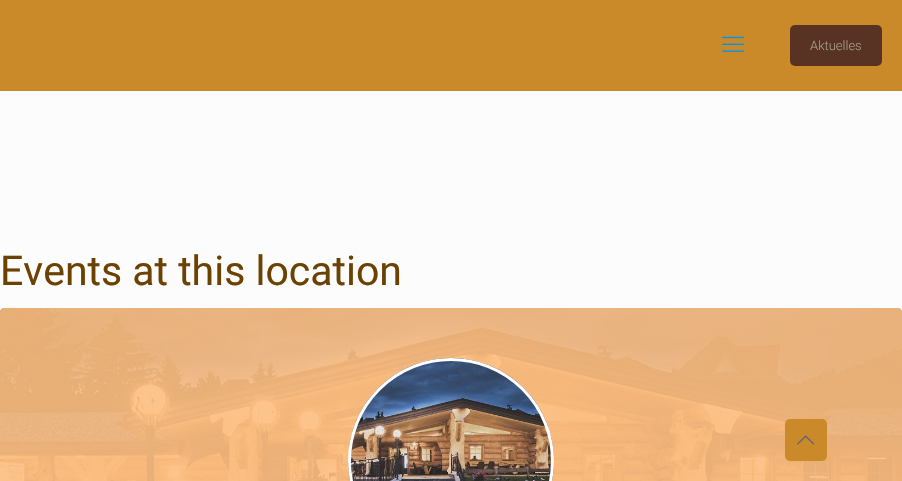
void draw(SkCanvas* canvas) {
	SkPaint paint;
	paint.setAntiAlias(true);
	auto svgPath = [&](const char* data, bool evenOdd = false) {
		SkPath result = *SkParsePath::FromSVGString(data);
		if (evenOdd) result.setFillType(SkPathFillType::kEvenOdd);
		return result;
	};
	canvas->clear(0xfffcfcfc);
	paint.setColor(0xffcb8a29);
	canvas->drawRect(SkRect::MakeXYWH(0, 0, 902, 91), paint);
	canvas->drawImageRect(SkImages::DeferredFromEncodedData(SkData::MakeFromFileName("img1.png")), SkRect::MakeXYWH(722, 36, 22, 16), SkSamplingOptions());
	paint.setColor(0xff583222);
	canvas->drawRoundRect(SkRect::MakeXYWH(790, 25, 92, 41), 5, 5, paint);
	SkFont f1(fontMgr->matchFamilyStyle("Roboto", SkFontStyle(300, SkFontStyle::kNormal_Width, SkFontStyle::kUpright_Slant)), 13);
	f1.setSubpixel(true);
	paint.setColor(0xffa79f8f);
	canvas->drawString("Aktuelles", 810, 50, f1, paint);
	SkFont f2(fontMgr->matchFamilyStyle("Roboto", SkFontStyle::Normal()), 41);
	f2.setSubpixel(true);
	paint.setColor(0xff6c4203);
	canvas->drawString("Events at this location", 0, 285, f2, paint);
	canvas->drawImageRect(SkImages::DeferredFromEncodedData(SkData::MakeFromFileName("img2.png")), SkRect::MakeXYWH(0, 308, 902, 173), SkSamplingOptions());
	paint.setColor(0xe3ffbf80);
	canvas->drawPath(svgPath("M5 308H897C900 308 902 310 902 313V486H0V313C0 310 2 308 5 308Z"), paint);
	canvas->drawImageRect(SkImages::DeferredFromEncodedData(SkData::MakeFromFileName("img3.png")), SkRect::MakeXYWH(348, 358, 206, 123), SkSamplingOptions());
	paint.setStroke(true);
	paint.setStrokeWidth(3);
	paint.setColor(0xffffffff);
	canvas->drawCircle(451, 461, 101.5, paint);
	paint.setStroke(false);
	paint.setColor(0xffcb8a29);
	canvas->drawRoundRect(SkRect::MakeXYWH(785, 419, 42, 42), 5, 5, paint);
	canvas->drawImageRect(SkImages::DeferredFromEncodedData(SkData::MakeFromFileName("img4.png")), SkRect::MakeXYWH(797, 435, 18, 10), SkSamplingOptions());
}
